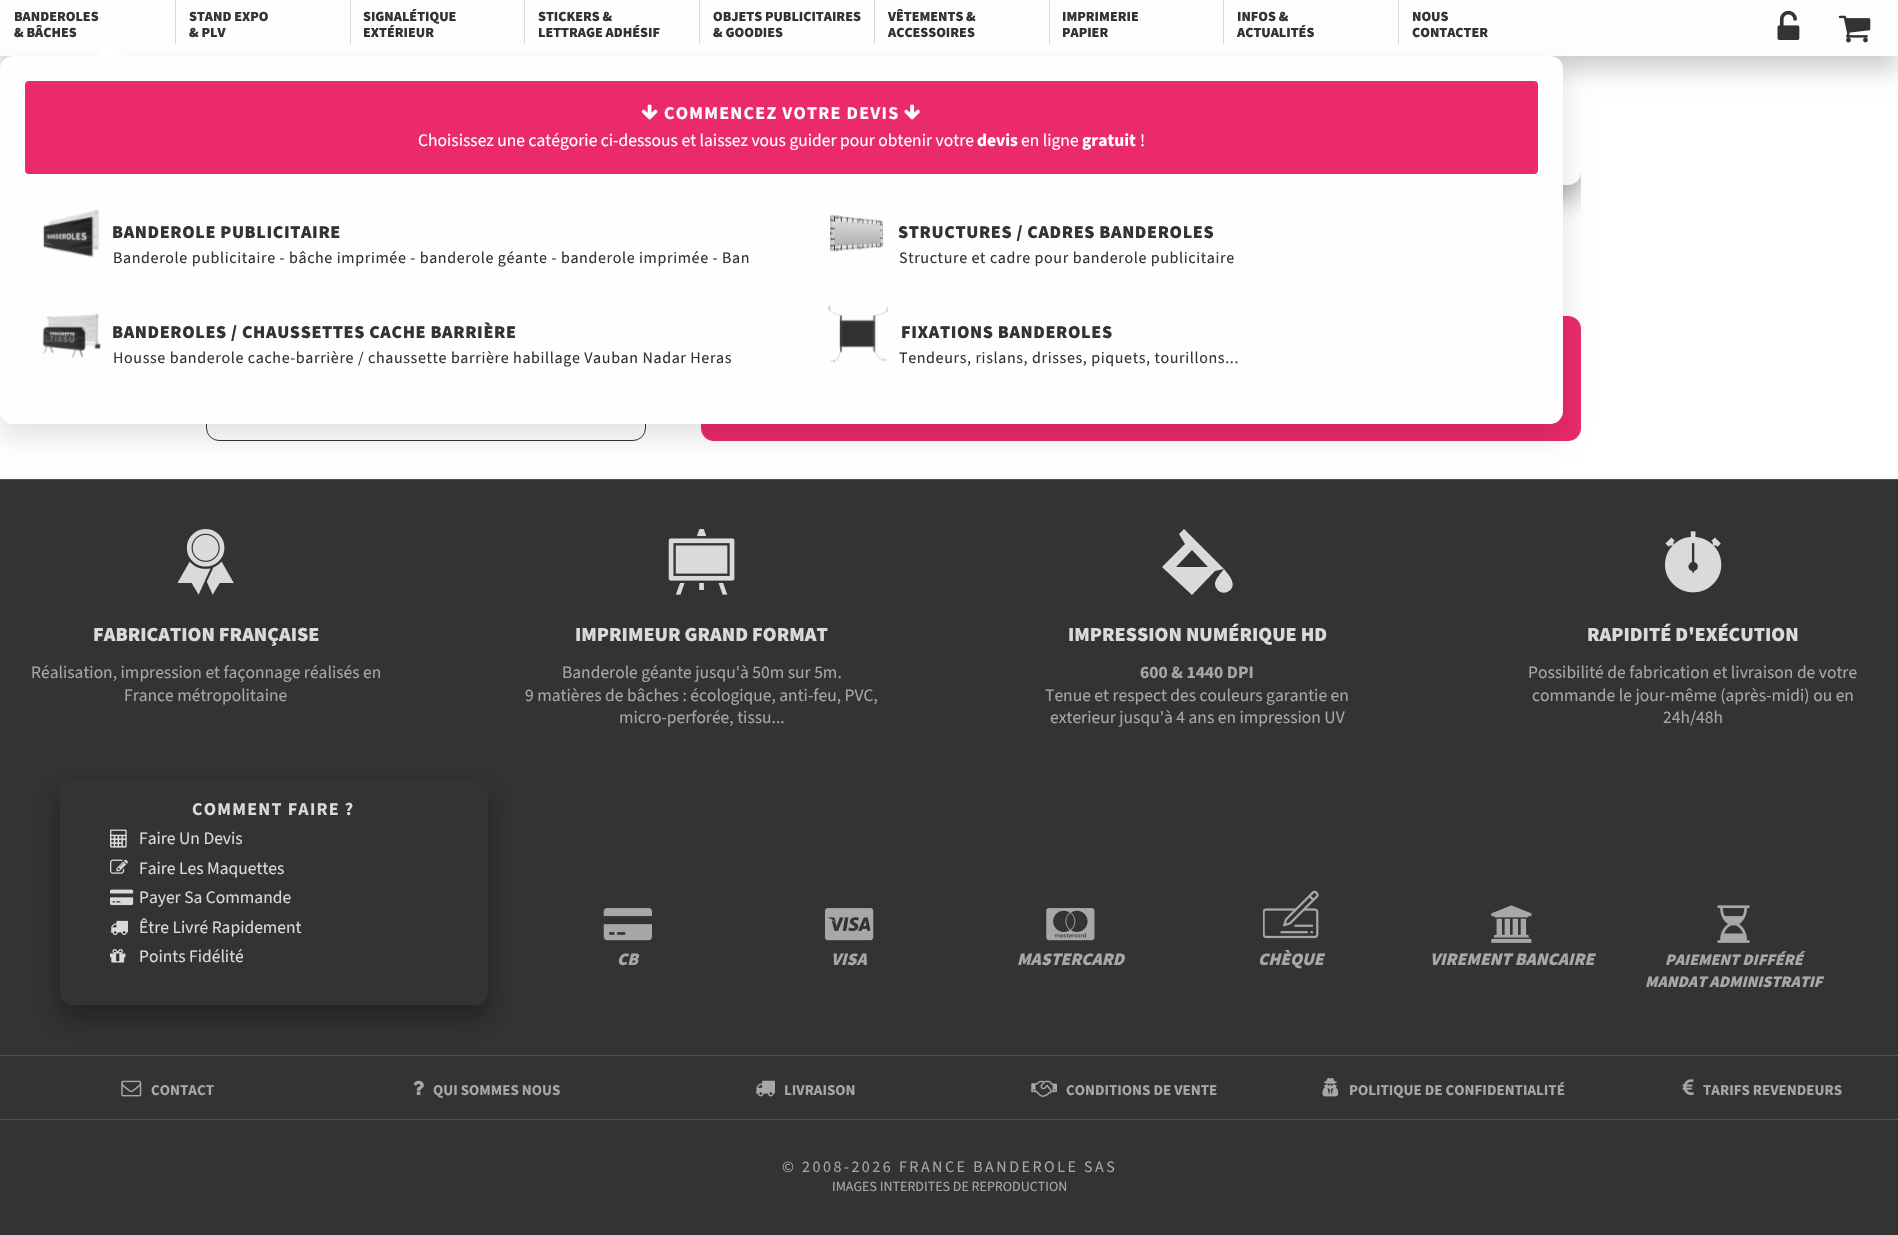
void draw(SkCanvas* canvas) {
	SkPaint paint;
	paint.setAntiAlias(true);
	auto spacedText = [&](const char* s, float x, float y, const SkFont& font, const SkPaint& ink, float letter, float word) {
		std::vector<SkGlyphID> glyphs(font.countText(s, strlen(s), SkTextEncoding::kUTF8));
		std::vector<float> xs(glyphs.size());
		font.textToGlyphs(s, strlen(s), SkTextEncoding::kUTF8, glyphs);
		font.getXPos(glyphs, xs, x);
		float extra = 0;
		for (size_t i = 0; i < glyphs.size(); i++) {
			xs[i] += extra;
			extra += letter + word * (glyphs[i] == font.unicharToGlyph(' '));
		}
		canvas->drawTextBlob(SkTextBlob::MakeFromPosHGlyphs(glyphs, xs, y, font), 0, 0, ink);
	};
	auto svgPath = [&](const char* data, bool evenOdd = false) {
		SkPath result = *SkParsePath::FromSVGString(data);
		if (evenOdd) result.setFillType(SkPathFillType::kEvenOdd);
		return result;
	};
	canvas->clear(0xffffffff);
	canvas->save();
	canvas->clipPath(svgPath("M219-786H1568C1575-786 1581-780 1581-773V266C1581 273 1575 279 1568 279H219C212 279 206 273 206 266V-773C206-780 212-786 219-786Z"), true);
	canvas->clipPath(svgPath("M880 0H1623V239H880ZM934-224H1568C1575-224 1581-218 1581-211V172C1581 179 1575 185 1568 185H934C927 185 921 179 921 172V-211C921-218 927-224 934-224Z", true), true);
	paint.setColor(0x4d000000);
	paint.setMaskFilter(SkMaskFilter::MakeBlur(kNormal_SkBlurStyle, 12.5));
	canvas->drawRoundRect(SkRect::MakeXYWH(919, -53, 665, 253), 15, 15, paint);
	paint.setMaskFilter(nullptr);
	canvas->restore();
	paint.setStroke(true);
	paint.setStrokeWidth(1);
	paint.setColor(0xff333333);
	canvas->drawRoundRect(SkRect::MakeXYWH(206.5, 316.5, 439, 124), 12.5, 12.5, paint);
	paint.setStroke(false);
	paint.setColor(0xffea2a6a);
	canvas->drawRoundRect(SkRect::MakeXYWH(701, 316, 880, 125), 13, 13, paint);
	paint.setColor(0x33000000);
	paint.setMaskFilter(SkMaskFilter::MakeBlur(kNormal_SkBlurStyle, 12.5));
	canvas->drawRect(SkRect::MakeXYWH(0, 13, 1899, 56), paint);
	paint.setMaskFilter(nullptr);
	paint.setColor(0xfffefefe);
	canvas->drawRect(SkRect::MakeXYWH(0, 0, 1898, 56), paint);
	SkFont f1(fontMgr->matchFamilyStyle("Source Sans 3", SkFontStyle(900, SkFontStyle::kNormal_Width, SkFontStyle::kUpright_Slant)), 14);
	f1.setSubpixel(true);
	paint.setColor(0xff333333);
	canvas->drawString("BANDEROLES", 14, 21, f1, paint);
	canvas->drawString("& BÂCHES", 14, 37, f1, paint);
	paint.setColor(0xffdadada);
	canvas->drawRect(SkRect::MakeXYWH(175, 0, 1, 44), paint);
	paint.setColor(0xff333333);
	canvas->drawString("STAND EXPO", 189, 21, f1, paint);
	canvas->drawString("& PLV", 189, 37, f1, paint);
	paint.setColor(0xffdadada);
	canvas->drawRect(SkRect::MakeXYWH(350, 0, 1, 44), paint);
	paint.setColor(0xff333333);
	canvas->drawString("SIGNALÉTIQUE", 363, 21, f1, paint);
	canvas->drawString("EXTÉRIEUR", 363, 37, f1, paint);
	paint.setColor(0xffdadada);
	canvas->drawRect(SkRect::MakeXYWH(524, 0, 1, 44), paint);
	paint.setColor(0xff333333);
	canvas->drawString("STICKERS &", 538, 21, f1, paint);
	canvas->drawString("LETTRAGE ADHÉSIF", 538, 37, f1, paint);
	paint.setColor(0xffdadada);
	canvas->drawRect(SkRect::MakeXYWH(699, 0, 1, 44), paint);
	paint.setColor(0xff333333);
	canvas->drawString("OBJETS PUBLICITAIRES", 713, 21, f1, paint);
	canvas->drawString("& GOODIES", 713, 37, f1, paint);
	paint.setColor(0xffdadada);
	canvas->drawRect(SkRect::MakeXYWH(874, 0, 1, 44), paint);
	paint.setColor(0xff333333);
	canvas->drawString("VÊTEMENTS &", 888, 21, f1, paint);
	canvas->drawString("ACCESSOIRES", 888, 37, f1, paint);
	paint.setColor(0xffdadada);
	canvas->drawRect(SkRect::MakeXYWH(1049, 0, 1, 44), paint);
	paint.setColor(0xff333333);
	canvas->drawString("IMPRIMERIE", 1062, 21, f1, paint);
	canvas->drawString("PAPIER", 1062, 37, f1, paint);
	paint.setColor(0xffdadada);
	canvas->drawRect(SkRect::MakeXYWH(1223, 0, 1, 44), paint);
	paint.setColor(0xff333333);
	canvas->drawString("INFOS &", 1237, 21, f1, paint);
	canvas->drawString("ACTUALITÉS", 1237, 37, f1, paint);
	paint.setColor(0xffdadada);
	canvas->drawRect(SkRect::MakeXYWH(1398, 0, 1, 44), paint);
	paint.setColor(0xff333333);
	canvas->drawString("NOUS", 1412, 21, f1, paint);
	canvas->drawString("CONTACTER", 1412, 37, f1, paint);
	paint.setColor(0x1a000000);
	paint.setMaskFilter(SkMaskFilter::MakeBlur(kNormal_SkBlurStyle, 12.5));
	canvas->drawRoundRect(SkRect::MakeXYWH(-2, 66, 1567, 373), 15, 15, paint);
	paint.setMaskFilter(nullptr);
	paint.setColor(0xfffefefe);
	canvas->drawRoundRect(SkRect::MakeXYWH(0, 56, 1563, 368), 13, 13, paint);
	paint.setColor(0xffffffff);
	canvas->drawPath(svgPath("M124 56H96L110 42.5Z"), paint);
	paint.setColor(0xffea2a6a);
	canvas->drawRoundRect(SkRect::MakeXYWH(25, 81, 1513, 93), 4, 4, paint);
	canvas->drawImageRect(SkImages::DeferredFromEncodedData(SkData::MakeFromFileName("img1.png")), SkRect::MakeXYWH(641, 104, 17, 16), SkSamplingOptions());
	SkFont f2(fontMgr->matchFamilyStyle("Source Sans 3", SkFontStyle::Bold()), 18);
	f2.setSubpixel(true);
	paint.setColor(0xffffffff);
	spacedText("COMMENCEZ VOTRE DEVIS", 664, 119, f2, paint, 1.25, 0);
	canvas->drawImageRect(SkImages::DeferredFromEncodedData(SkData::MakeFromFileName("img2.png")), SkRect::MakeXYWH(904, 104, 16, 16), SkSamplingOptions());
	SkFont f3(fontMgr->matchFamilyStyle("Source Sans 3", SkFontStyle::Normal()), 17.5);
	f3.setSubpixel(true);
	canvas->drawString("Choisissez une catégorie ci-dessous et laissez vous guider pour obtenir votre", 418, 146, f3, paint);
	SkFont f4(fontMgr->matchFamilyStyle("Source Sans 3", SkFontStyle::Bold()), 17.5);
	f4.setSubpixel(true);
	canvas->drawString("devis", 977, 146, f4, paint);
	canvas->drawString("en ligne", 1021, 146, f3, paint);
	canvas->drawString("gratuit", 1082, 146, f4, paint);
	canvas->drawString("!", 1140, 146, f3, paint);
	canvas->drawImageRect(SkImages::DeferredFromEncodedData(SkData::MakeFromFileName("img3.png")), SkRect::MakeXYWH(43, 209, 57, 49), SkSamplingOptions());
	SkFont f5(fontMgr->matchFamilyStyle("Source Sans 3", SkFontStyle(900, SkFontStyle::kNormal_Width, SkFontStyle::kUpright_Slant)), 18);
	f5.setSubpixel(true);
	paint.setColor(0xff333333);
	spacedText("BANDEROLE PUBLICITAIRE", 112, 238, f5, paint, 0.62, 0);
	SkFont f6(fontMgr->matchFamilyStyle("Source Sans 3", SkFontStyle::Normal()), 16);
	f6.setSubpixel(true);
	spacedText("Banderole publicitaire - bâche imprimée - banderole géante - banderole imprimée - Ban", 113, 263, f6, paint, 0.62, 0);
	canvas->drawImageRect(SkImages::DeferredFromEncodedData(SkData::MakeFromFileName("img4.png")), SkRect::MakeXYWH(830, 214, 54, 38), SkSamplingOptions());
	spacedText("STRUCTURES / CADRES BANDEROLES", 898, 238, f5, paint, 0.62, 0);
	spacedText("Structure et cadre pour banderole publicitaire", 899, 263, f6, paint, 0.62, 0);
	canvas->drawImageRect(SkImages::DeferredFromEncodedData(SkData::MakeFromFileName("img5.png")), SkRect::MakeXYWH(42, 313, 59, 45), SkSamplingOptions());
	spacedText("BANDEROLES / CHAUSSETTES CACHE BARRIÈRE", 112, 338, f5, paint, 0.62, 0);
	spacedText("Housse banderole cache-barrière / chaussette barrière habillage Vauban Nadar Heras", 113, 363, f6, paint, 0.62, 0);
	canvas->drawImageRect(SkImages::DeferredFromEncodedData(SkData::MakeFromFileName("img6.png")), SkRect::MakeXYWH(828, 305, 60, 58), SkSamplingOptions());
	spacedText("FIXATIONS BANDEROLES", 901, 338, f5, paint, 0.62, 0);
	spacedText("Tendeurs, rislans, drisses, piquets, tourillons...", 899, 363, f6, paint, 0.62, 0);
	canvas->drawImageRect(SkImages::DeferredFromEncodedData(SkData::MakeFromFileName("img7.png")), SkRect::MakeXYWH(1777, 10, 23, 30), SkSamplingOptions());
	canvas->drawImageRect(SkImages::DeferredFromEncodedData(SkData::MakeFromFileName("img8.png")), SkRect::MakeXYWH(1838, 15, 33, 28), SkSamplingOptions());
	canvas->drawRect(SkRect::MakeXYWH(0, 480, 1898, 755), paint);
	paint.setColor(0xff525252);
	canvas->drawRect(SkRect::MakeXYWH(0, 479, 1898, 1), paint);
	canvas->drawImageRect(SkImages::DeferredFromEncodedData(SkData::MakeFromFileName("img9.png")), SkRect::MakeXYWH(177, 529, 57, 66), SkSamplingOptions());
	SkFont f7(fontMgr->matchFamilyStyle("Source Sans 3", SkFontStyle(900, SkFontStyle::kNormal_Width, SkFontStyle::kUpright_Slant)), 20);
	f7.setSubpixel(true);
	paint.setColor(0xffdadada);
	canvas->drawString("FABRICATION FRANÇAISE", 93, 641, f7, paint);
	paint.setColor(0xffa7a7a7);
	canvas->drawString("Réalisation, impression et façonnage réalisés en", 31, 678, f3, paint);
	canvas->drawString("France métropolitaine", 124, 701, f3, paint);
	canvas->drawImageRect(SkImages::DeferredFromEncodedData(SkData::MakeFromFileName("img10.png")), SkRect::MakeXYWH(668, 529, 67, 66), SkSamplingOptions());
	paint.setColor(0xffdadada);
	canvas->drawString("IMPRIMEUR GRAND FORMAT", 575, 641, f7, paint);
	paint.setColor(0xffa7a7a7);
	canvas->drawString("Banderole géante jusqu'à 50m sur 5m.", 562, 678, f3, paint);
	canvas->drawString("9 matières de bâches : écologique, anti-feu, PVC,", 525, 701, f3, paint);
	canvas->drawString("micro-perforée, tissu...", 619, 723, f3, paint);
	paint.setColor(0xffdadada);
	canvas->drawPath(svgPath("M1179 534L1184 529L1224 569L1215 571L1192 595L1162 567L1185 544ZM1208 567L1192 550L1176 567ZM1224 569C1227 573 1231 577 1232 581C1236 591 1222 597 1217 589C1215 587 1215 585 1215 583C1216 578 1221 573 1224 569Z"), paint);
	canvas->drawString("IMPRESSION NUMÉRIQUE HD", 1068, 641, f7, paint);
	paint.setColor(0xffa7a7a7);
	canvas->drawString("600 & 1440 DPI", 1140, 678, f4, paint);
	canvas->drawString("Tenue et respect des couleurs garantie en", 1045, 701, f3, paint);
	canvas->drawString("exterieur jusqu'à 4 ans en impression UV", 1050, 723, f3, paint);
	canvas->drawImageRect(SkImages::DeferredFromEncodedData(SkData::MakeFromFileName("img11.png")), SkRect::MakeXYWH(1665, 531, 57, 62), SkSamplingOptions());
	paint.setColor(0xffdadada);
	canvas->drawString("RAPIDITÉ D'EXÉCUTION", 1587, 641, f7, paint);
	paint.setColor(0xffa7a7a7);
	canvas->drawString("Possibilité de fabrication et livraison de votre", 1528, 678, f3, paint);
	canvas->drawString("commande le jour-même (après-midi) ou en", 1532, 701, f3, paint);
	canvas->drawString("24h/48h", 1663, 723, f3, paint);
	paint.setColor(0xff525252);
	canvas->drawRect(SkRect::MakeXYWH(0, 1055, 1898, 1), paint);
	canvas->save();
	canvas->clipPath(svgPath("M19 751H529V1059H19ZM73 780H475C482 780 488 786 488 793V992C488 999 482 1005 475 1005H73C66 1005 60 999 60 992V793C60 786 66 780 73 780Z", true), true);
	paint.setColor(0x4d000000);
	paint.setMaskFilter(SkMaskFilter::MakeBlur(kNormal_SkBlurStyle, 12.5));
	canvas->drawRoundRect(SkRect::MakeXYWH(58, 790, 432, 230), 15, 15, paint);
	paint.setMaskFilter(nullptr);
	canvas->restore();
	paint.setColor(0xffdadada);
	spacedText("COMMENT FAIRE ?", 192, 815, f2, paint, 1.25, 0);
	canvas->drawImageRect(SkImages::DeferredFromEncodedData(SkData::MakeFromFileName("img12.png")), SkRect::MakeXYWH(110, 829, 17, 19), SkSamplingOptions());
	canvas->drawString("Faire Un Devis", 139, 844, f3, paint);
	canvas->drawImageRect(SkImages::DeferredFromEncodedData(SkData::MakeFromFileName("img13.png")), SkRect::MakeXYWH(110, 859, 18, 15), SkSamplingOptions());
	canvas->drawString("Faire Les Maquettes", 139, 874, f3, paint);
	canvas->drawImageRect(SkImages::DeferredFromEncodedData(SkData::MakeFromFileName("img14.png")), SkRect::MakeXYWH(110, 889, 24, 17), SkSamplingOptions());
	canvas->drawString("Payer Sa Commande", 139, 903, f3, paint);
	canvas->drawImageRect(SkImages::DeferredFromEncodedData(SkData::MakeFromFileName("img15.png")), SkRect::MakeXYWH(110, 920, 18, 15), SkSamplingOptions());
	canvas->drawString("Être Livré Rapidement", 139, 933, f3, paint);
	canvas->drawImageRect(SkImages::DeferredFromEncodedData(SkData::MakeFromFileName("img16.png")), SkRect::MakeXYWH(110, 949, 16, 14), SkSamplingOptions());
	canvas->drawString("Points Fidélité", 139, 962, f3, paint);
	canvas->drawImageRect(SkImages::DeferredFromEncodedData(SkData::MakeFromFileName("img17.png")), SkRect::MakeXYWH(603, 908, 49, 33), SkSamplingOptions());
	SkFont f8(fontMgr->matchFamilyStyle("Source Sans 3", SkFontStyle(900, SkFontStyle::kNormal_Width, SkFontStyle::kItalic_Slant)), 17.5);
	f8.setSubpixel(true);
	paint.setColor(0xffa7a7a7);
	canvas->drawString("CB", 617, 965, f8, paint);
	canvas->drawImageRect(SkImages::DeferredFromEncodedData(SkData::MakeFromFileName("img18.png")), SkRect::MakeXYWH(825, 908, 49, 33), SkSamplingOptions());
	canvas->drawString("VISA", 831, 965, f8, paint);
	canvas->drawImageRect(SkImages::DeferredFromEncodedData(SkData::MakeFromFileName("img19.png")), SkRect::MakeXYWH(1046, 908, 49, 33), SkSamplingOptions());
	canvas->drawString("MASTERCARD", 1017, 965, f8, paint);
	canvas->drawImageRect(SkImages::DeferredFromEncodedData(SkData::MakeFromFileName("img20.png")), SkRect::MakeXYWH(1263, 890, 56, 49), SkSamplingOptions());
	canvas->drawString("CHÈQUE", 1258, 965, f8, paint);
	canvas->drawImageRect(SkImages::DeferredFromEncodedData(SkData::MakeFromFileName("img21.png")), SkRect::MakeXYWH(1491, 905, 41, 38), SkSamplingOptions());
	canvas->drawString("VIREMENT BANCAIRE", 1430, 965, f8, paint);
	canvas->drawImageRect(SkImages::DeferredFromEncodedData(SkData::MakeFromFileName("img22.png")), SkRect::MakeXYWH(1717, 905, 33, 38), SkSamplingOptions());
	SkFont f9(fontMgr->matchFamilyStyle("Source Sans 3", SkFontStyle(900, SkFontStyle::kNormal_Width, SkFontStyle::kItalic_Slant)), 16);
	f9.setSubpixel(true);
	canvas->drawString("PAIEMENT DIFFÉRÉ", 1665, 965, f9, paint);
	canvas->drawString("MANDAT ADMINISTRATIF", 1645, 987, f9, paint);
	paint.setColor(0xff525252);
	canvas->drawRect(SkRect::MakeXYWH(0, 1119, 1898, 1), paint);
	canvas->drawImageRect(SkImages::DeferredFromEncodedData(SkData::MakeFromFileName("img23.png")), SkRect::MakeXYWH(121, 1080, 21, 17), SkSamplingOptions());
	SkFont f10(fontMgr->matchFamilyStyle("Source Sans 3", SkFontStyle::Bold()), 15);
	f10.setSubpixel(true);
	paint.setColor(0xffa7a7a7);
	canvas->drawString("CONTACT", 151, 1095, f10, paint);
	canvas->drawImageRect(SkImages::DeferredFromEncodedData(SkData::MakeFromFileName("img24.png")), SkRect::MakeXYWH(413, 1080, 11, 15), SkSamplingOptions());
	canvas->drawString("QUI SOMMES NOUS", 433, 1095, f10, paint);
	canvas->drawImageRect(SkImages::DeferredFromEncodedData(SkData::MakeFromFileName("img25.png")), SkRect::MakeXYWH(755, 1080, 20, 17), SkSamplingOptions());
	canvas->drawString("LIVRAISON", 784, 1095, f10, paint);
	canvas->drawImageRect(SkImages::DeferredFromEncodedData(SkData::MakeFromFileName("img26.png")), SkRect::MakeXYWH(1031, 1080, 26, 17), SkSamplingOptions());
	canvas->drawString("CONDITIONS DE VENTE", 1066, 1095, f10, paint);
	canvas->drawImageRect(SkImages::DeferredFromEncodedData(SkData::MakeFromFileName("img27.png")), SkRect::MakeXYWH(1322, 1077, 17, 20), SkSamplingOptions());
	canvas->drawString("POLITIQUE DE CONFIDENTIALITÉ", 1349, 1095, f10, paint);
	canvas->drawImageRect(SkImages::DeferredFromEncodedData(SkData::MakeFromFileName("img28.png")), SkRect::MakeXYWH(1682, 1079, 12, 16), SkSamplingOptions());
	canvas->drawString("TARIFS REVENDEURS", 1703, 1095, f10, paint);
	spacedText("© 2008-2026 FRANCE BANDEROLE SAS", 782, 1172, f6, paint, 2.5, 0);
	SkFont f11(fontMgr->matchFamilyStyle("Source Sans 3", SkFontStyle::Normal()), 14);
	f11.setSubpixel(true);
	canvas->drawString("IMAGES INTERDITES DE REPRODUCTION", 832, 1191, f11, paint);
}
